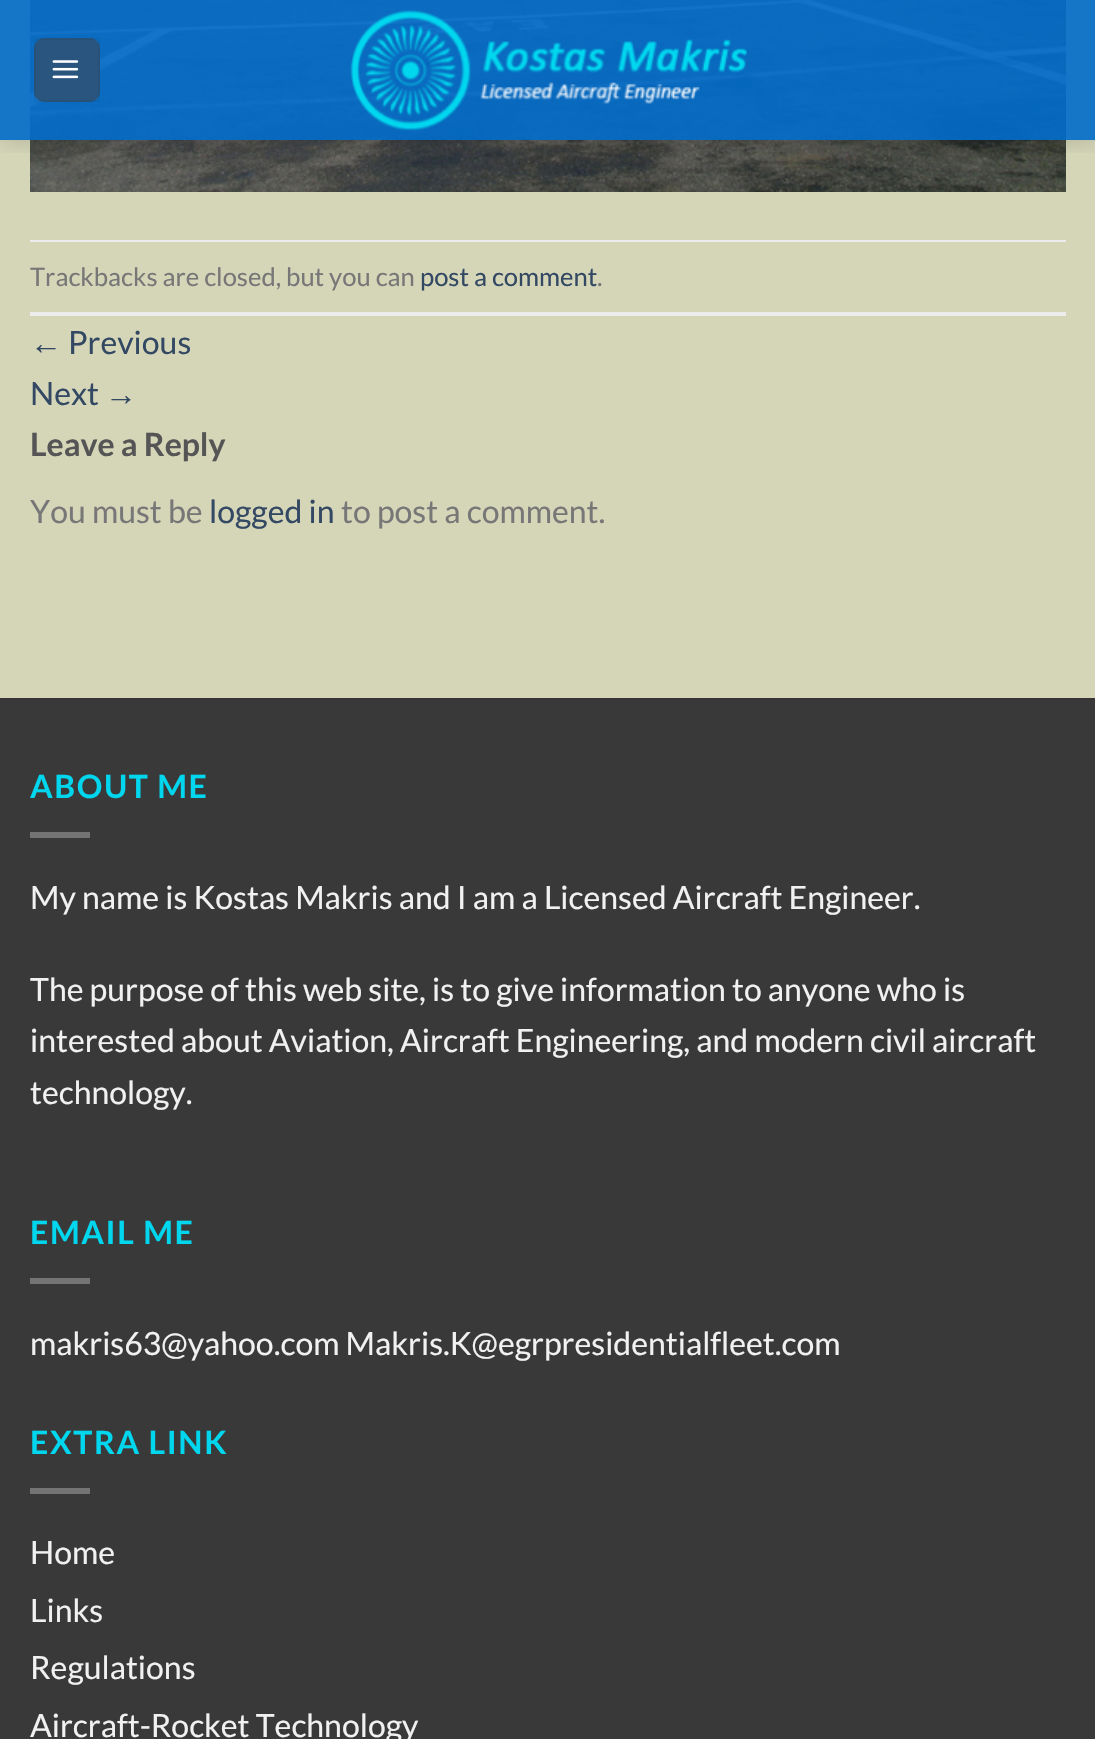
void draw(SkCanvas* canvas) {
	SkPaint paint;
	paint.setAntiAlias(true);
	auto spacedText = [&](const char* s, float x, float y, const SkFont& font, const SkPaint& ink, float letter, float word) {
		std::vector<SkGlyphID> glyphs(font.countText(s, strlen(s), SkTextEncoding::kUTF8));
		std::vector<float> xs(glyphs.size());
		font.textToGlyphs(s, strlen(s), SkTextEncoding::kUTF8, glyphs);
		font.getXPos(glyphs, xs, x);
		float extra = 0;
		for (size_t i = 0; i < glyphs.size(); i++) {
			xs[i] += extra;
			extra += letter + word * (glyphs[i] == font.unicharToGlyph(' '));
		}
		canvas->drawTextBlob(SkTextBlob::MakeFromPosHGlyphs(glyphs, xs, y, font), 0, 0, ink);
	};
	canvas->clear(0xffd5d5b8);
	canvas->drawImageRect(SkImages::DeferredFromEncodedData(SkData::MakeFromFileName("img3.png")), SkRect::MakeXYWH(30, 0, 1036, 192), SkSamplingOptions());
	canvas->save();
	canvas->clipRect(SkRect::MakeXYWH(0, 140, 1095, 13));
	paint.setColor(0x26000000);
	paint.setMaskFilter(SkMaskFilter::MakeBlur(kNormal_SkBlurStyle, 10));
	canvas->drawRect(SkRect::MakeXYWH(2, 2, 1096, 140), paint);
	paint.setMaskFilter(nullptr);
	canvas->restore();
	paint.setColor(0xb0006bc9);
	canvas->drawRect(SkRect::MakeXYWH(0, 0, 1095, 140), paint);
	canvas->drawRect(SkRect::MakeXYWH(0, 0, 1095, 140), paint);
	paint.setColor(0xff2a557e);
	canvas->drawRoundRect(SkRect::MakeXYWH(34, 38, 66, 64), 10, 10, paint);
	paint.setStroke(true);
	paint.setStrokeWidth(2);
	paint.setColor(0x0d000000);
	canvas->drawRect(SkRect::MakeXYWH(35, 39, 64, 62), paint);
	canvas->drawImageRect(SkImages::DeferredFromEncodedData(SkData::MakeFromFileName("img1.png")), SkRect::MakeXYWH(52, 60, 27, 19), SkSamplingOptions());
	canvas->drawImageRect(SkImages::DeferredFromEncodedData(SkData::MakeFromFileName("img2.png")), SkRect::MakeXYWH(350, 10, 397, 121), SkSamplingOptions());
	paint.setStroke(false);
	paint.setColor(0xffececec);
	canvas->drawRect(SkRect::MakeXYWH(30, 240, 1036, 2), paint);
	canvas->drawRect(SkRect::MakeXYWH(30, 312, 1036, 4), paint);
	SkFont f1(fontMgr->matchFamilyStyle("Lato", SkFontStyle::Normal()), 25.6);
	f1.setSubpixel(true);
	paint.setColor(0xff777777);
	canvas->drawString("Trackbacks are closed, but you can", 30, 286, f1, paint);
	paint.setColor(0xff334862);
	canvas->drawString("post a comment", 420, 286, f1, paint);
	paint.setColor(0xff777777);
	canvas->drawString(".", 597, 286, f1, paint);
	SkFont f2(fontMgr->matchFamilyStyle("Liberation Sans", SkFontStyle::Normal()), 32);
	f2.setSubpixel(true);
	paint.setColor(0xff334862);
	canvas->drawString("←", 30, 354, f2, paint);
	SkFont f3(fontMgr->matchFamilyStyle("Lato", SkFontStyle::Normal()), 32);
	f3.setSubpixel(true);
	canvas->drawString("Previous", 68, 354, f3, paint);
	canvas->drawString("Next", 30, 405, f3, paint);
	canvas->drawString("→", 105, 405, f2, paint);
	SkFont f4(fontMgr->matchFamilyStyle("Lato", SkFontStyle::Bold()), 32);
	f4.setSubpixel(true);
	paint.setColor(0xff555555);
	canvas->drawString("Leave a Reply", 30, 456, f4, paint);
	paint.setColor(0xff777777);
	canvas->drawString("You must be", 30, 523, f3, paint);
	paint.setColor(0xff334862);
	canvas->drawString("logged in", 209, 523, f3, paint);
	paint.setColor(0xff777777);
	canvas->drawString("to post a comment.", 341, 523, f3, paint);
	paint.setColor(0xff393939);
	canvas->drawRect(SkRect::MakeXYWH(0, 700, 1095, 1039), paint);
	paint.setColor(0xff363636);
	canvas->drawRect(SkRect::MakeXYWH(0, 698, 1095, 2), paint);
	paint.setColor(0xff00d6ee);
	spacedText("ABOUT ME", 30, 798, f4, paint, 1.6, 0);
	paint.setColor(0xff747474);
	canvas->drawRect(SkRect::MakeXYWH(30, 832, 60, 6), paint);
	paint.setColor(0xfff1f1f1);
	canvas->drawString("My name is Kostas Makris and I am a Licensed Aircraft Engineer.", 30, 909, f3, paint);
	canvas->drawString("The purpose of this web site, is to give information to anyone who is", 30, 1001, f3, paint);
	canvas->drawString("interested about Aviation, Aircraft Engineering, and modern civil aircraft", 30, 1052, f3, paint);
	canvas->drawString("technology.", 30, 1104, f3, paint);
	paint.setColor(0xff00d6ee);
	spacedText("EMAIL ME", 30, 1244, f4, paint, 1.6, 0);
	paint.setColor(0xff747474);
	canvas->drawRect(SkRect::MakeXYWH(30, 1278, 60, 6), paint);
	paint.setColor(0xfff1f1f1);
	canvas->drawString("makris63@yahoo.com Makris.K@egrpresidentialfleet.com", 30, 1355, f3, paint);
	paint.setColor(0xff00d6ee);
	spacedText("EXTRA LINK", 30, 1454, f4, paint, 1.6, 0);
	paint.setColor(0xff747474);
	canvas->drawRect(SkRect::MakeXYWH(30, 1488, 60, 6), paint);
	paint.setColor(0xfff1f1f1);
	canvas->drawString("Home", 30, 1564, f3, paint);
	canvas->drawString("Links", 30, 1622, f3, paint);
	canvas->drawString("Regulations", 30, 1679, f3, paint);
	canvas->drawString("Aircraft-Rocket Technology", 30, 1737, f3, paint);
}
